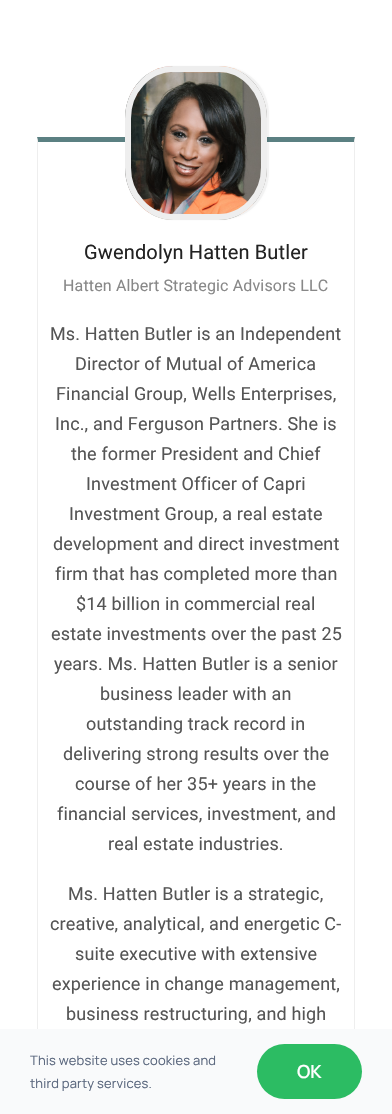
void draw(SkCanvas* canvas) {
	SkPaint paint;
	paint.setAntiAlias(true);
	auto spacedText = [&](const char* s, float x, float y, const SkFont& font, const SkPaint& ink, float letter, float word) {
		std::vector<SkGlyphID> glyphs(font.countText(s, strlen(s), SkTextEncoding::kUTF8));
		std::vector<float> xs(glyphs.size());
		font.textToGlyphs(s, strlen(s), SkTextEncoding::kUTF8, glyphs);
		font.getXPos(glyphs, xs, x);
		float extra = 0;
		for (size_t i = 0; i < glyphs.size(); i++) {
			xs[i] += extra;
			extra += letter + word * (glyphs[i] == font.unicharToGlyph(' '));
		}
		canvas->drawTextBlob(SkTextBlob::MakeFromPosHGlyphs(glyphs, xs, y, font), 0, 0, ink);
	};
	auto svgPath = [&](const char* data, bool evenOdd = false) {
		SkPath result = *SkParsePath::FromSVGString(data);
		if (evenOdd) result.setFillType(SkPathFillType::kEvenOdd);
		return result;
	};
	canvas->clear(0xffffffff);
	paint.setColor(0xff5b8082);
	canvas->drawPath(svgPath("M37 137H355L354 142H38Z"), paint);
	paint.setColor(0xffeeeeee);
	canvas->drawPath(svgPath("M355 137V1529L354 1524V142Z"), paint);
	canvas->drawPath(svgPath("M37 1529V137L38 142V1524Z"), paint);
	paint.setColor(0x0d000000);
	paint.setMaskFilter(SkMaskFilter::MakeBlur(kNormal_SkBlurStyle, 0.5));
	canvas->drawRoundRect(SkRect::MakeXYWH(127, 66, 142, 154), 48, 48, paint);
	paint.setMaskFilter(nullptr);
	canvas->drawImageRect(SkImages::DeferredFromEncodedData(SkData::MakeFromFileName("img1.png")), SkRect::MakeXYWH(125, 66, 142, 154), SkSamplingOptions());
	paint.setStroke(true);
	paint.setStrokeWidth(6);
	paint.setColor(0xffeeeeee);
	canvas->drawPath(svgPath("M173.5 69H218.5C243.5 69 264 91 264 118.5V167.5C264 195 243.5 217 218.5 217H173.5C148.5 217 128 195 128 167.5V118.5C128 91 148.5 69 173.5 69Z"), paint);
	SkFont f1(fontMgr->matchFamilyStyle("Roboto", SkFontStyle::Normal()), 20);
	f1.setSubpixel(true);
	paint.setStroke(false);
	paint.setColor(0xff222222);
	spacedText("Gwendolyn Hatten Butler", 84, 259, f1, paint, 0.15, 0);
	SkFont f2(fontMgr->matchFamilyStyle("Roboto", SkFontStyle::Normal()), 16);
	f2.setSubpixel(true);
	paint.setColor(0xff888888);
	spacedText("Hatten Albert Strategic Advisors LLC", 63, 291, f2, paint, 0.15, 0);
	SkFont f3(fontMgr->matchFamilyStyle("Roboto", SkFontStyle::Normal()), 18);
	f3.setSubpixel(true);
	paint.setColor(0xff555555);
	spacedText("Ms. Hatten Butler is an Independent", 50, 340, f3, paint, 0.15, 0);
	spacedText("Director of Mutual of America", 75, 370, f3, paint, 0.15, 0);
	spacedText("Financial Group, Wells Enterprises,", 56, 400, f3, paint, 0.15, 0);
	spacedText("Inc., and Ferguson Partners. She is", 55, 430, f3, paint, 0.15, 0);
	spacedText("the former President and Chief", 71, 460, f3, paint, 0.15, 0);
	spacedText("Investment Officer of Capri", 86, 490, f3, paint, 0.15, 0);
	spacedText("Investment Group, a real estate", 69, 520, f3, paint, 0.15, 0);
	spacedText("development and direct investment", 53, 550, f3, paint, 0.15, 0);
	spacedText("firm that has completed more than", 55, 580, f3, paint, 0.15, 0);
	spacedText("$14 billion in commercial real", 76, 610, f3, paint, 0.15, 0);
	spacedText("estate investments over the past 25", 51, 640, f3, paint, 0.15, 0);
	spacedText("years. Ms. Hatten Butler is a senior", 54, 670, f3, paint, 0.15, 0);
	spacedText("business leader with an", 100, 700, f3, paint, 0.15, 0);
	spacedText("outstanding track record in", 86, 730, f3, paint, 0.15, 0);
	spacedText("delivering strong results over the", 63, 760, f3, paint, 0.15, 0);
	spacedText("course of her 35+ years in the", 75, 790, f3, paint, 0.15, 0);
	spacedText("financial services, investment, and", 57, 820, f3, paint, 0.15, 0);
	spacedText("real estate industries.", 108, 850, f3, paint, 0.15, 0);
	spacedText("Ms. Hatten Butler is a strategic,", 68, 900, f3, paint, 0.15, 0);
	spacedText("creative, analytical, and energetic C-", 50, 930, f3, paint, 0.15, 0);
	spacedText("suite executive with extensive", 75, 960, f3, paint, 0.15, 0);
	spacedText("experience in change management,", 52, 990, f3, paint, 0.15, 0);
	spacedText("business restructuring, and high", 66, 1020, f3, paint, 0.15, 0);
	paint.setColor(0xfff9fafb);
	canvas->drawRect(SkRect::MakeXYWH(0, 1029, 392, 85), paint);
	SkFont f4(fontMgr->matchFamilyStyle("Manrope", SkFontStyle::Normal()), 13);
	f4.setSubpixel(true);
	paint.setColor(0xff59667d);
	spacedText("This website uses cookies and", 30, 1065, f4, paint, 0.15, 0);
	spacedText("third party services.", 30, 1088, f4, paint, 0.15, 0);
	paint.setColor(0xff2cbc63);
	canvas->drawRoundRect(SkRect::MakeXYWH(257, 1044, 105, 55), 27.5, 27.5, paint);
	SkFont f5(fontMgr->matchFamilyStyle("Manrope", SkFontStyle(600, SkFontStyle::kNormal_Width, SkFontStyle::kUpright_Slant)), 18);
	f5.setSubpixel(true);
	paint.setColor(0xffffffff);
	canvas->drawString("OK", 297, 1078, f5, paint);
}
